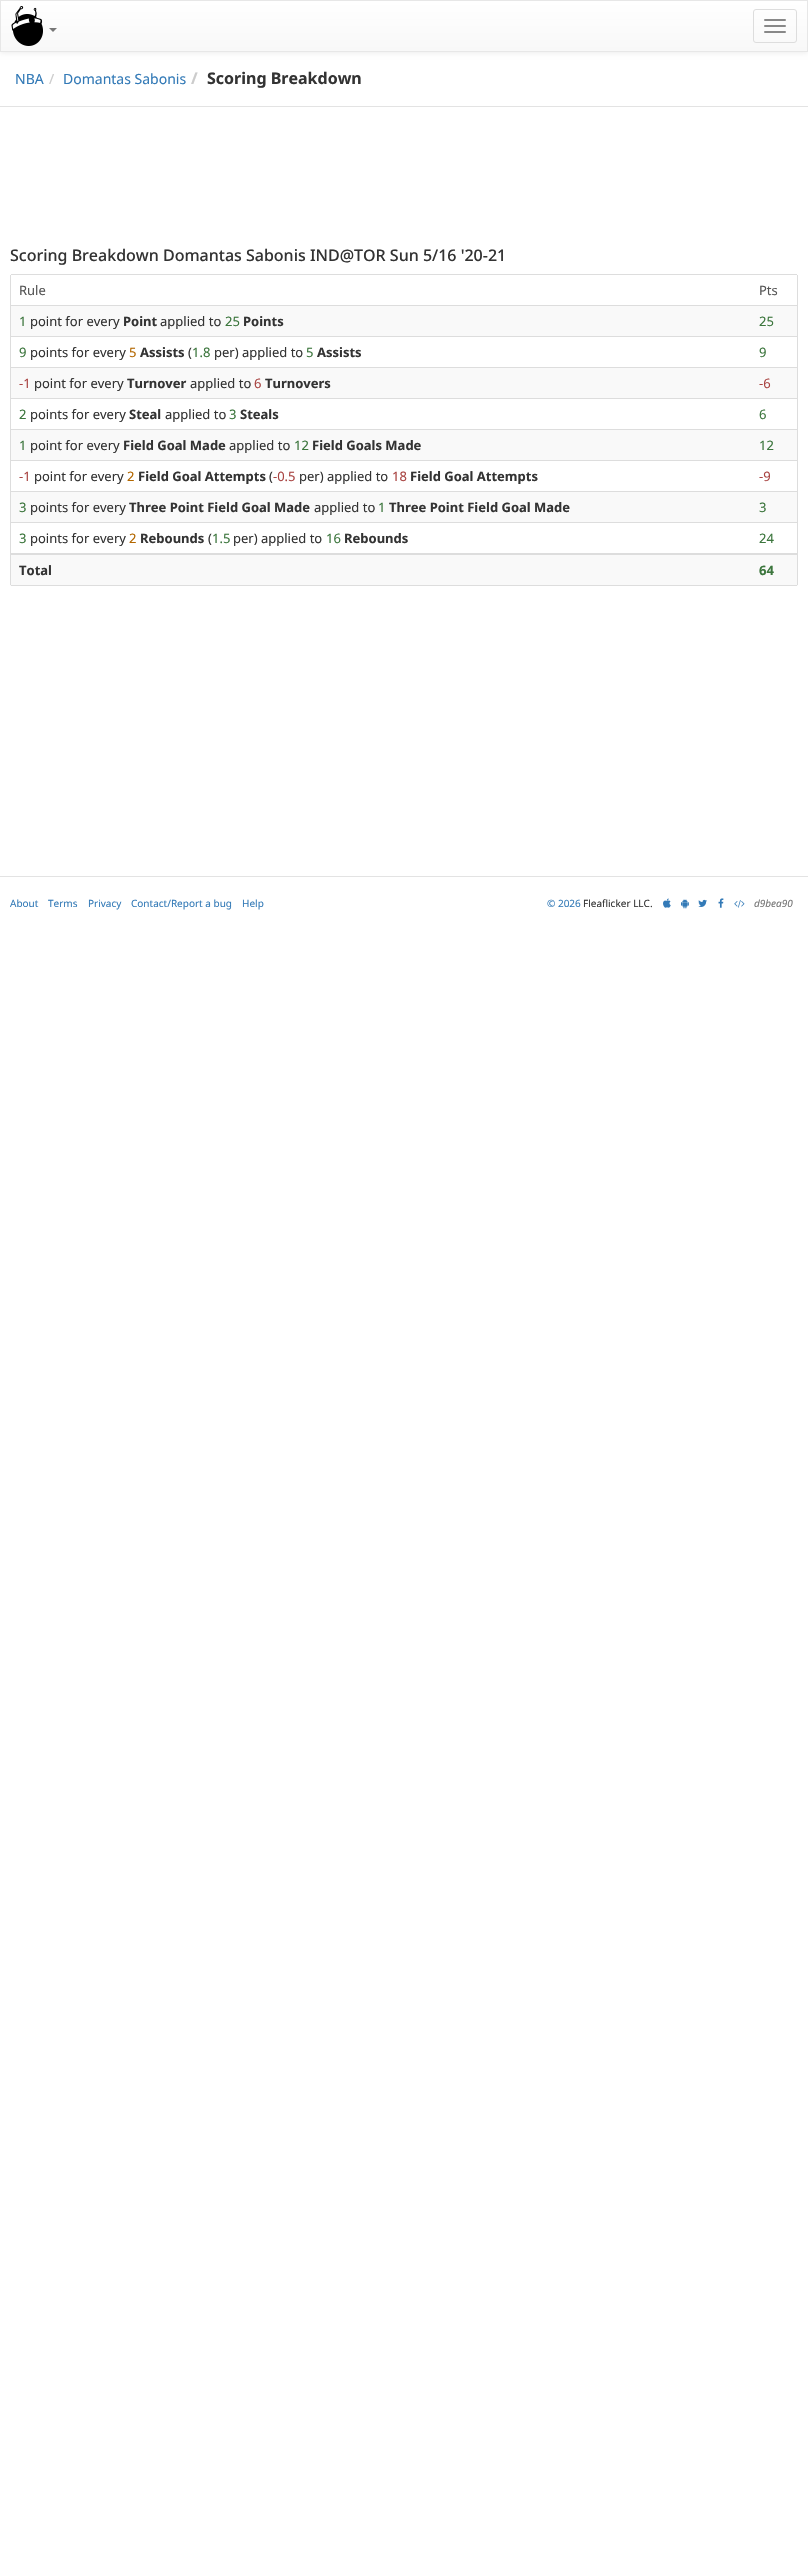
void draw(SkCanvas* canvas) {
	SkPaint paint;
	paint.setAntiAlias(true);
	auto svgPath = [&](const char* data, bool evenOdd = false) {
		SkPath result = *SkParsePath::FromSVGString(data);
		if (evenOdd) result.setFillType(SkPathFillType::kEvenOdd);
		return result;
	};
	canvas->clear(0xffffffff);
	paint.setColor(0x12000000);
	paint.setMaskFilter(SkMaskFilter::MakeBlur(kNormal_SkBlurStyle, 2.5));
	canvas->drawRect(SkRect::MakeXYWH(0, 1, 808, 52), paint);
	paint.setMaskFilter(nullptr);
	{
		const SkColor colors[] = {0xffffffff, 0xfff8f8f8};
		const float stops[] = {0, 1};
		const SkPoint ends[] = {{404, 1}, {404, 51}};
		paint.setShader(SkGradientShader::MakeLinear(ends, colors, stops, 2, SkTileMode::kClamp));
		paint.setAlpha(255);
	}
	canvas->drawRect(SkRect::MakeXYWH(1, 1, 806, 50), paint);
	paint.setStroke(true);
	paint.setStrokeWidth(1);
	paint.setShader(nullptr);
	paint.setColor(0xffe7e7e7);
	canvas->drawRect(SkRect::MakeXYWH(0.5, 0.5, 807, 51), paint);
	canvas->drawImageRect(SkImages::DeferredFromEncodedData(SkData::MakeFromFileName("img1.png")), SkRect::MakeXYWH(11, 6, 32, 40), SkSamplingOptions());
	paint.setStroke(false);
	paint.setColor(0xff777777);
	canvas->drawPath(svgPath("M49 28H57L53 32Z"), paint);
	paint.setStroke(true);
	paint.setColor(0xffdddddd);
	canvas->drawRoundRect(SkRect::MakeXYWH(753.5, 9.5, 43, 33), 2.5, 2.5, paint);
	paint.setStroke(false);
	paint.setColor(0xff888888);
	canvas->drawRoundRect(SkRect::MakeXYWH(764, 19, 22, 2), 1, 1, paint);
	canvas->drawRoundRect(SkRect::MakeXYWH(764, 25, 22, 2), 1, 1, paint);
	canvas->drawRoundRect(SkRect::MakeXYWH(764, 31, 22, 2), 1, 1, paint);
	paint.setColor(0xffe3e3e3);
	canvas->drawRect(SkRect::MakeXYWH(0, 106, 808, 1), paint);
	SkFont f1(fontMgr->matchFamilyStyle("Noto Sans", SkFontStyle::Normal()), 14);
	f1.setSubpixel(true);
	paint.setColor(0xff337ab7);
	canvas->drawString("NBA", 15, 84, f1, paint);
	paint.setColor(0xffcccccc);
	canvas->drawString("/", 49, 84, f1, paint);
	paint.setColor(0xff337ab7);
	canvas->drawString("Domantas Sabonis", 63, 84, f1, paint);
	SkFont f2(fontMgr->matchFamilyStyle("Noto Sans", SkFontStyle::Bold()), 16);
	f2.setSubpixel(true);
	paint.setColor(0xffcccccc);
	canvas->drawString("/", 191, 84, f2, paint);
	paint.setColor(0xff333333);
	canvas->drawString("Scoring Breakdown", 207, 84, f2, paint);
	SkFont f3(fontMgr->matchFamilyStyle("Noto Sans", SkFontStyle(500, SkFontStyle::kNormal_Width, SkFontStyle::kUpright_Slant)), 16);
	f3.setSubpixel(true);
	canvas->drawString("Scoring Breakdown Domantas Sabonis IND@TOR Sun 5/16 '20-21", 10, 261, f3, paint);
	paint.setColor(0xffdddddd);
	canvas->drawRect(SkRect::MakeXYWH(11, 274, 786, 1), paint);
	canvas->drawRect(SkRect::MakeXYWH(10, 275, 1, 30), paint);
	SkFont f4(fontMgr->matchFamilyStyle("Noto Sans", SkFontStyle::Normal()), 13);
	f4.setSubpixel(true);
	paint.setColor(0xff555555);
	canvas->drawString("Rule", 19, 295, f4, paint);
	paint.setColor(0xffdddddd);
	canvas->drawRect(SkRect::MakeXYWH(797, 275, 1, 30), paint);
	paint.setColor(0xff555555);
	canvas->drawString("Pts", 759, 295, f4, paint);
	paint.setColor(0xfff9f9f9);
	canvas->drawRect(SkRect::MakeXYWH(11, 306, 786, 30), paint);
	paint.setColor(0xffdddddd);
	canvas->drawRect(SkRect::MakeXYWH(10, 305, 788, 1), paint);
	canvas->drawRect(SkRect::MakeXYWH(10, 305, 1, 31), paint);
	paint.setColor(0xff3c763d);
	canvas->drawString("1", 19, 326, f4, paint);
	paint.setColor(0xff333333);
	canvas->drawString("point for every", 30, 326, f4, paint);
	SkFont f5(fontMgr->matchFamilyStyle("Noto Sans", SkFontStyle::Bold()), 13);
	f5.setSubpixel(true);
	canvas->drawString("Point", 123, 326, f5, paint);
	canvas->drawString("applied to", 160, 326, f4, paint);
	paint.setColor(0xff3c763d);
	canvas->drawString("25", 225, 326, f4, paint);
	paint.setColor(0xff333333);
	canvas->drawString("Points", 243, 326, f5, paint);
	paint.setColor(0xffdddddd);
	canvas->drawRect(SkRect::MakeXYWH(797, 305, 1, 31), paint);
	paint.setColor(0xff3c763d);
	canvas->drawString("25", 759, 326, f4, paint);
	paint.setColor(0xffdddddd);
	canvas->drawRect(SkRect::MakeXYWH(10, 336, 788, 1), paint);
	canvas->drawRect(SkRect::MakeXYWH(10, 336, 1, 31), paint);
	paint.setColor(0xff3c763d);
	canvas->drawString("9", 19, 357, f4, paint);
	paint.setColor(0xff333333);
	canvas->drawString("points for every", 30, 357, f4, paint);
	paint.setColor(0xffb36700);
	canvas->drawString("5", 129, 357, f4, paint);
	paint.setColor(0xff333333);
	canvas->drawString("Assists", 140, 357, f5, paint);
	canvas->drawString("(", 188, 357, f4, paint);
	paint.setColor(0xff3c763d);
	canvas->drawString("1.8", 192, 357, f4, paint);
	paint.setColor(0xff333333);
	canvas->drawString("per) applied to", 214, 357, f4, paint);
	paint.setColor(0xff3c763d);
	canvas->drawString("5", 306, 357, f4, paint);
	paint.setColor(0xff333333);
	canvas->drawString("Assists", 317, 357, f5, paint);
	paint.setColor(0xffdddddd);
	canvas->drawRect(SkRect::MakeXYWH(797, 336, 1, 31), paint);
	paint.setColor(0xff3c763d);
	canvas->drawString("9", 759, 357, f4, paint);
	paint.setColor(0xfff9f9f9);
	canvas->drawRect(SkRect::MakeXYWH(11, 368, 786, 30), paint);
	paint.setColor(0xffdddddd);
	canvas->drawRect(SkRect::MakeXYWH(10, 367, 788, 1), paint);
	canvas->drawRect(SkRect::MakeXYWH(10, 367, 1, 31), paint);
	paint.setColor(0xffa94442);
	canvas->drawString("-1", 19, 388, f4, paint);
	paint.setColor(0xff333333);
	canvas->drawString("point for every", 34, 388, f4, paint);
	canvas->drawString("Turnover", 127, 388, f5, paint);
	canvas->drawString("applied to", 190, 388, f4, paint);
	paint.setColor(0xffa94442);
	canvas->drawString("6", 254, 388, f4, paint);
	paint.setColor(0xff333333);
	canvas->drawString("Turnovers", 265, 388, f5, paint);
	paint.setColor(0xffdddddd);
	canvas->drawRect(SkRect::MakeXYWH(797, 367, 1, 31), paint);
	paint.setColor(0xffa94442);
	canvas->drawString("-6", 759, 388, f4, paint);
	paint.setColor(0xffdddddd);
	canvas->drawRect(SkRect::MakeXYWH(10, 398, 788, 1), paint);
	canvas->drawRect(SkRect::MakeXYWH(10, 398, 1, 31), paint);
	paint.setColor(0xff3c763d);
	canvas->drawString("2", 19, 419, f4, paint);
	paint.setColor(0xff333333);
	canvas->drawString("points for every", 30, 419, f4, paint);
	canvas->drawString("Steal", 129, 419, f5, paint);
	canvas->drawString("applied to", 165, 419, f4, paint);
	paint.setColor(0xff3c763d);
	canvas->drawString("3", 229, 419, f4, paint);
	paint.setColor(0xff333333);
	canvas->drawString("Steals", 240, 419, f5, paint);
	paint.setColor(0xffdddddd);
	canvas->drawRect(SkRect::MakeXYWH(797, 398, 1, 31), paint);
	paint.setColor(0xff3c763d);
	canvas->drawString("6", 759, 419, f4, paint);
	paint.setColor(0xfff9f9f9);
	canvas->drawRect(SkRect::MakeXYWH(11, 430, 786, 30), paint);
	paint.setColor(0xffdddddd);
	canvas->drawRect(SkRect::MakeXYWH(10, 429, 788, 1), paint);
	canvas->drawRect(SkRect::MakeXYWH(10, 429, 1, 31), paint);
	paint.setColor(0xff3c763d);
	canvas->drawString("1", 19, 450, f4, paint);
	paint.setColor(0xff333333);
	canvas->drawString("point for every", 30, 450, f4, paint);
	canvas->drawString("Field Goal Made", 123, 450, f5, paint);
	canvas->drawString("applied to", 229, 450, f4, paint);
	paint.setColor(0xff3c763d);
	canvas->drawString("12", 294, 450, f4, paint);
	paint.setColor(0xff333333);
	canvas->drawString("Field Goals Made", 312, 450, f5, paint);
	paint.setColor(0xffdddddd);
	canvas->drawRect(SkRect::MakeXYWH(797, 429, 1, 31), paint);
	paint.setColor(0xff3c763d);
	canvas->drawString("12", 759, 450, f4, paint);
	paint.setColor(0xffdddddd);
	canvas->drawRect(SkRect::MakeXYWH(10, 460, 788, 1), paint);
	canvas->drawRect(SkRect::MakeXYWH(10, 460, 1, 31), paint);
	paint.setColor(0xffa94442);
	canvas->drawString("-1", 19, 481, f4, paint);
	paint.setColor(0xff333333);
	canvas->drawString("point for every", 34, 481, f4, paint);
	paint.setColor(0xffb36700);
	canvas->drawString("2", 127, 481, f4, paint);
	paint.setColor(0xff333333);
	canvas->drawString("Field Goal Attempts", 138, 481, f5, paint);
	canvas->drawString("(", 269, 481, f4, paint);
	paint.setColor(0xffa94442);
	canvas->drawString("-0.5", 273, 481, f4, paint);
	paint.setColor(0xff333333);
	canvas->drawString("per) applied to", 299, 481, f4, paint);
	paint.setColor(0xffa94442);
	canvas->drawString("18", 392, 481, f4, paint);
	paint.setColor(0xff333333);
	canvas->drawString("Field Goal Attempts", 410, 481, f5, paint);
	paint.setColor(0xffdddddd);
	canvas->drawRect(SkRect::MakeXYWH(797, 460, 1, 31), paint);
	paint.setColor(0xffa94442);
	canvas->drawString("-9", 759, 481, f4, paint);
	paint.setColor(0xfff9f9f9);
	canvas->drawRect(SkRect::MakeXYWH(11, 492, 786, 30), paint);
	paint.setColor(0xffdddddd);
	canvas->drawRect(SkRect::MakeXYWH(10, 491, 788, 1), paint);
	canvas->drawRect(SkRect::MakeXYWH(10, 491, 1, 31), paint);
	paint.setColor(0xff3c763d);
	canvas->drawString("3", 19, 512, f4, paint);
	paint.setColor(0xff333333);
	canvas->drawString("points for every", 30, 512, f4, paint);
	canvas->drawString("Three Point Field Goal Made", 129, 512, f5, paint);
	canvas->drawString("applied to", 314, 512, f4, paint);
	paint.setColor(0xff3c763d);
	canvas->drawString("1", 378, 512, f4, paint);
	paint.setColor(0xff333333);
	canvas->drawString("Three Point Field Goal Made", 389, 512, f5, paint);
	paint.setColor(0xffdddddd);
	canvas->drawRect(SkRect::MakeXYWH(797, 491, 1, 31), paint);
	paint.setColor(0xff3c763d);
	canvas->drawString("3", 759, 512, f4, paint);
	paint.setColor(0xffdddddd);
	canvas->drawRect(SkRect::MakeXYWH(10, 522, 788, 1), paint);
	canvas->drawRect(SkRect::MakeXYWH(10, 522, 1, 31), paint);
	paint.setColor(0xff3c763d);
	canvas->drawString("3", 19, 543, f4, paint);
	paint.setColor(0xff333333);
	canvas->drawString("points for every", 30, 543, f4, paint);
	paint.setColor(0xffb36700);
	canvas->drawString("2", 129, 543, f4, paint);
	paint.setColor(0xff333333);
	canvas->drawString("Rebounds", 140, 543, f5, paint);
	canvas->drawString("(", 208, 543, f4, paint);
	paint.setColor(0xff3c763d);
	canvas->drawString("1.5", 212, 543, f4, paint);
	paint.setColor(0xff333333);
	canvas->drawString("per) applied to", 233, 543, f4, paint);
	paint.setColor(0xff3c763d);
	canvas->drawString("16", 326, 543, f4, paint);
	paint.setColor(0xff333333);
	canvas->drawString("Rebounds", 344, 543, f5, paint);
	paint.setColor(0xffdddddd);
	canvas->drawRect(SkRect::MakeXYWH(797, 522, 1, 31), paint);
	paint.setColor(0xff3c763d);
	canvas->drawString("24", 759, 543, f4, paint);
	paint.setColor(0xfff9f9f9);
	canvas->drawRect(SkRect::MakeXYWH(10, 555, 788, 31), paint);
	paint.setColor(0xffdddddd);
	canvas->drawRect(SkRect::MakeXYWH(10, 553, 788, 2), paint);
	canvas->drawRect(SkRect::MakeXYWH(11, 585, 786, 1), paint);
	canvas->drawRect(SkRect::MakeXYWH(10, 553, 1, 32), paint);
	paint.setColor(0xff333333);
	canvas->drawString("Total", 19, 575, f5, paint);
	paint.setColor(0xffdddddd);
	canvas->drawRect(SkRect::MakeXYWH(797, 553, 1, 32), paint);
	paint.setColor(0xff3c763d);
	canvas->drawString("64", 759, 575, f5, paint);
	paint.setColor(0xffe3e3e3);
	canvas->drawRect(SkRect::MakeXYWH(0, 876, 808, 1), paint);
	SkFont f6(fontMgr->matchFamilyStyle("Noto Sans", SkFontStyle::Normal()), 10);
	f6.setSubpixel(true);
	paint.setColor(0xff337ab7);
	canvas->drawString("About", 10, 907, f6, paint);
	canvas->drawString("Terms", 48, 907, f6, paint);
	canvas->drawString("Privacy", 88, 907, f6, paint);
	canvas->drawString("Contact/Report a bug", 131, 907, f6, paint);
	canvas->drawString("Help", 242, 907, f6, paint);
	canvas->drawString("© 2026", 547, 907, f6, paint);
	paint.setColor(0xff333333);
	canvas->drawString("Fleaflicker LLC.", 583, 907, f6, paint);
	canvas->drawImageRect(SkImages::DeferredFromEncodedData(SkData::MakeFromFileName("img2.png")), SkRect::MakeXYWH(663, 898, 8, 10), SkSamplingOptions());
	canvas->drawImageRect(SkImages::DeferredFromEncodedData(SkData::MakeFromFileName("img3.png")), SkRect::MakeXYWH(681, 899, 8, 10), SkSamplingOptions());
	canvas->drawImageRect(SkImages::DeferredFromEncodedData(SkData::MakeFromFileName("img4.png")), SkRect::MakeXYWH(698, 899, 9, 8), SkSamplingOptions());
	canvas->drawImageRect(SkImages::DeferredFromEncodedData(SkData::MakeFromFileName("img5.png")), SkRect::MakeXYWH(718, 898, 6, 10), SkSamplingOptions());
	canvas->drawImageRect(SkImages::DeferredFromEncodedData(SkData::MakeFromFileName("img6.png")), SkRect::MakeXYWH(734, 900, 11, 8), SkSamplingOptions());
	SkFont f7(fontMgr->matchFamilyStyle("Noto Sans", SkFontStyle::Italic()), 10);
	f7.setSubpixel(true);
	paint.setColor(0xff777777);
	canvas->drawString("d9bea90", 754, 907, f7, paint);
}
